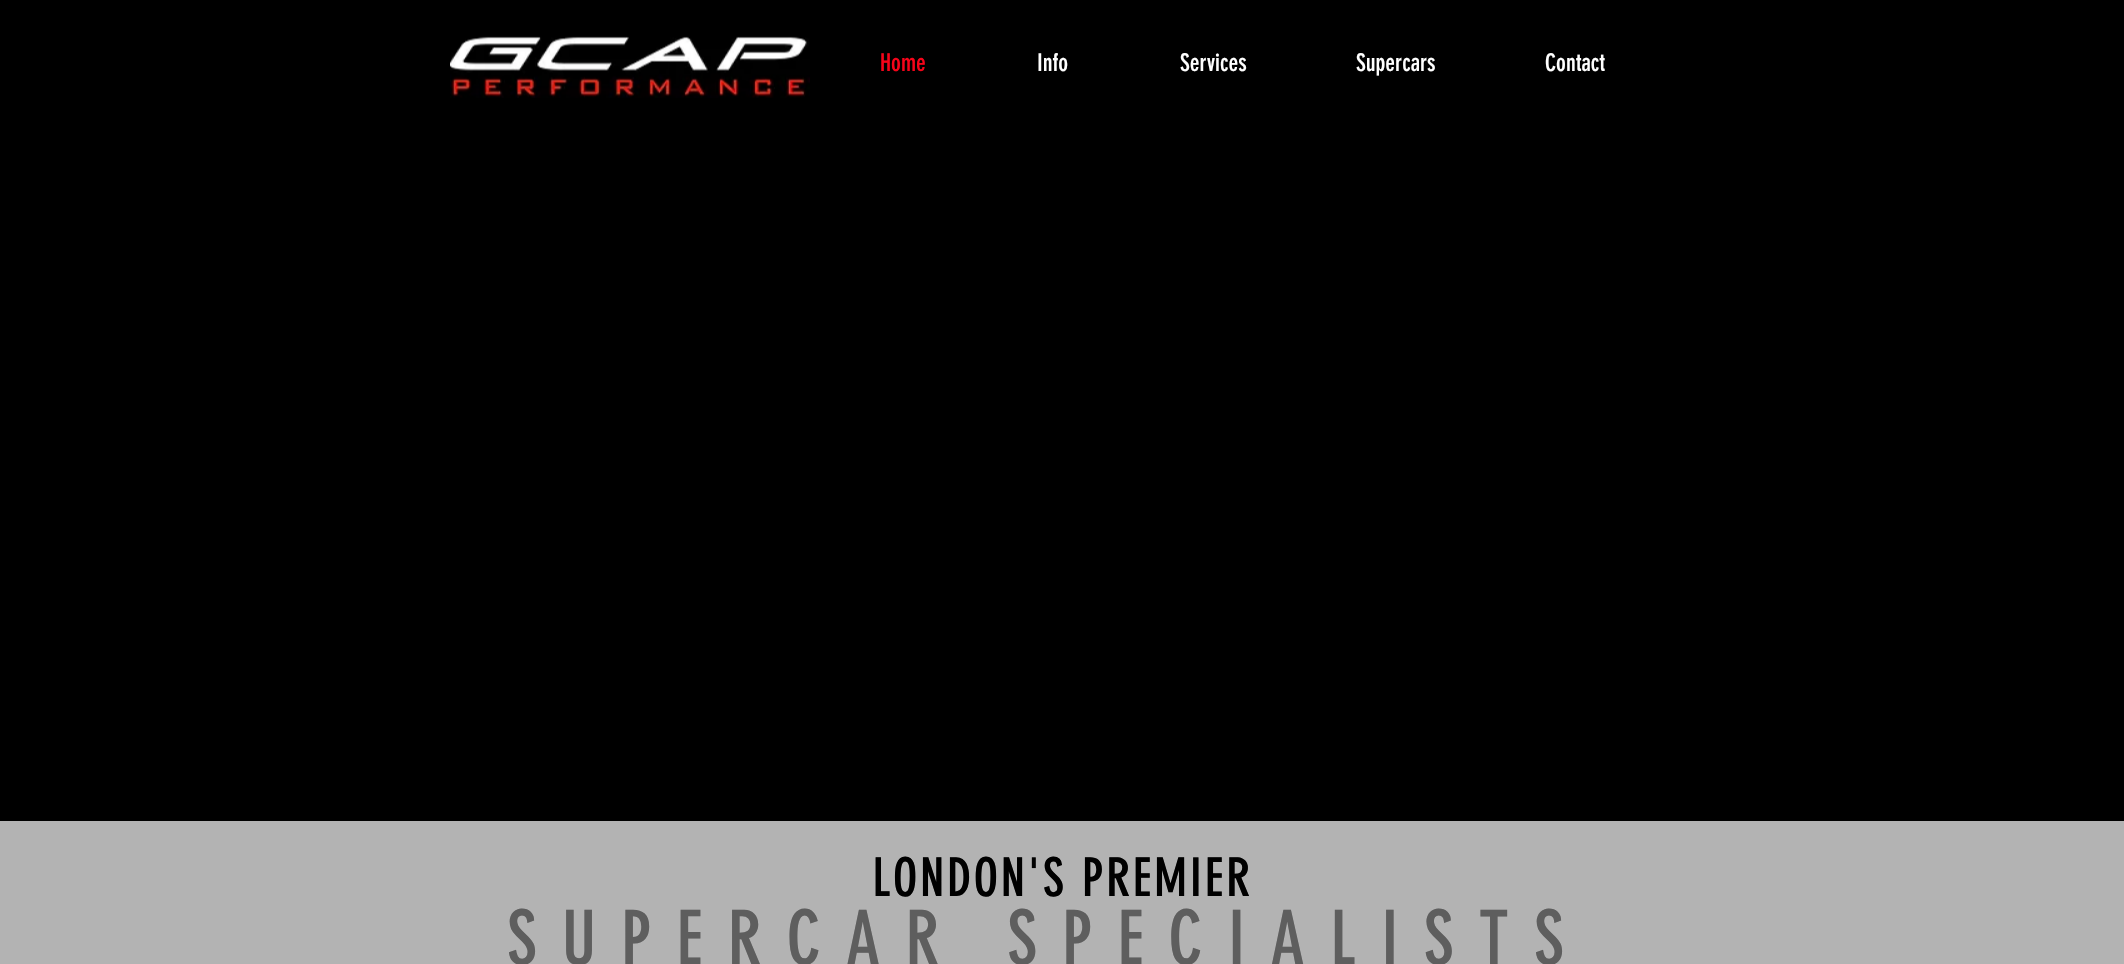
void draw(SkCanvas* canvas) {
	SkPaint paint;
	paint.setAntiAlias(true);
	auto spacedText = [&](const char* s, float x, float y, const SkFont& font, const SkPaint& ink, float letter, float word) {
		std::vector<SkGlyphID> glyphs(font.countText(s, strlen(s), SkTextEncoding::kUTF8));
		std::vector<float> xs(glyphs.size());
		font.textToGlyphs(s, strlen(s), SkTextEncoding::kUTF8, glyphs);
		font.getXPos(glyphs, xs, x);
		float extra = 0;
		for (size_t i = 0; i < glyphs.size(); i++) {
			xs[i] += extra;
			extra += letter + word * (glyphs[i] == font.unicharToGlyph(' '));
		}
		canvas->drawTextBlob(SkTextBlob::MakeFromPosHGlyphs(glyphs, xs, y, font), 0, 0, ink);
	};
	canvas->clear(0xff000000);
	canvas->drawImageRect(SkImages::DeferredFromEncodedData(SkData::MakeFromFileName("img1.png")), SkRect::MakeXYWH(450, 36, 360, 62), SkSamplingOptions());
	SkFont f1(fontMgr->matchFamilyStyle("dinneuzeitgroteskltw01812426", SkFontStyle::Normal()), 24);
	f1.setSubpixel(true);
	paint.setColor(0xfff60419);
	canvas->drawString("Home", 880, 71, f1, paint);
	paint.setColor(0xffffffff);
	canvas->drawString("Info", 1037, 71, f1, paint);
	canvas->drawString("Services", 1180, 71, f1, paint);
	canvas->drawString("Supercars", 1356, 71, f1, paint);
	canvas->drawString("Contact", 1545, 71, f1, paint);
	paint.setColor(0xffb3b3b3);
	canvas->drawRect(SkRect::MakeXYWH(0, 821, 2124, 143), paint);
	SkFont f2(fontMgr->matchFamilyStyle("dinneuzeitgroteskltw01812426", SkFontStyle::Normal()), 52.5);
	f2.setSubpixel(true);
	paint.setColor(0xff000000);
	spacedText("LONDON'S PREMIER", 872, 896, f2, paint, 2.6, 0);
	SkFont f3(fontMgr->matchFamilyStyle("dinneuzeitgroteskltw01812426", SkFontStyle::Normal()), 73.75);
	f3.setSubpixel(true);
	paint.setColor(0xff5e5e5e);
	spacedText("S U P E R C A R   S P E C I A L I S T S", 507, 964, f3, paint, 3.7, 0);
}
